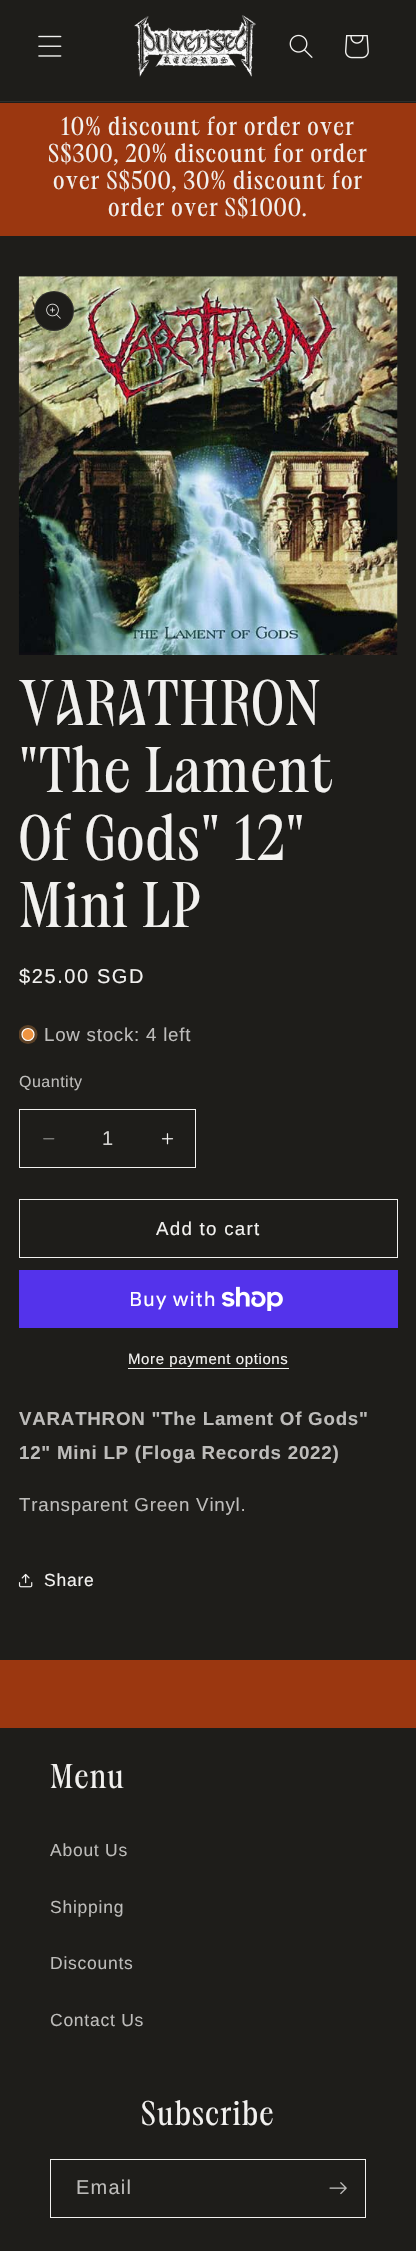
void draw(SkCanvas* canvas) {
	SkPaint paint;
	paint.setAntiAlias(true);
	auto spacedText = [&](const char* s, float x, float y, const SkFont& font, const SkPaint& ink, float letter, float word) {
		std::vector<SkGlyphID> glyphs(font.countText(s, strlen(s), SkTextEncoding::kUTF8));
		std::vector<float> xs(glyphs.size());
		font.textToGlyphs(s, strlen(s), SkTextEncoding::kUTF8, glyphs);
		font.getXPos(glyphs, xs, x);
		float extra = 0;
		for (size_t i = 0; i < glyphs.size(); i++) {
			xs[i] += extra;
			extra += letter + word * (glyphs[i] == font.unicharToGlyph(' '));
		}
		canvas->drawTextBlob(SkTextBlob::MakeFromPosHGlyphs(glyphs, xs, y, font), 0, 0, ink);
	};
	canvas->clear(0xff1e1d1a);
	paint.setColor(0xff2f2e2b);
	canvas->drawRect(SkRect::MakeXYWH(0, 101, 416, 1), paint);
	canvas->drawImageRect(SkImages::DeferredFromEncodedData(SkData::MakeFromFileName("img1.png")), SkRect::MakeXYWH(38, 35, 24, 22), SkSamplingOptions());
	canvas->drawImageRect(SkImages::DeferredFromEncodedData(SkData::MakeFromFileName("img2.png")), SkRect::MakeXYWH(134, 15, 122, 62), SkSamplingOptions());
	canvas->drawImageRect(SkImages::DeferredFromEncodedData(SkData::MakeFromFileName("img3.png")), SkRect::MakeXYWH(289, 34, 24, 24), SkSamplingOptions());
	canvas->drawImageRect(SkImages::DeferredFromEncodedData(SkData::MakeFromFileName("img4.png")), SkRect::MakeXYWH(345, 35, 24, 24), SkSamplingOptions());
	paint.setColor(0xff9b3710);
	canvas->drawRect(SkRect::MakeXYWH(0, 103, 416, 133), paint);
	SkFont f1(fontMgr->matchFamilyStyle("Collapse", SkFontStyle::Normal()), 22.5);
	f1.setSubpixel(true);
	paint.setColor(0xfff2f1ef);
	spacedText("10% discount for order over", 61, 135, f1, paint, 1.25, 0);
	spacedText("S$300, 20% discount for order", 48, 162, f1, paint, 1.25, 0);
	spacedText("over S$500, 30% discount for", 53, 189, f1, paint, 1.25, 0);
	spacedText("order over S$1000.", 108, 216, f1, paint, 1.25, 0);
	canvas->drawImageRect(SkImages::DeferredFromEncodedData(SkData::MakeFromFileName("img5.png")), SkRect::MakeXYWH(18, 276, 380, 379), SkSamplingOptions());
	paint.setColor(0xff1e1d1a);
	canvas->drawCircle(54, 311, 20, paint);
	paint.setStroke(true);
	paint.setStrokeWidth(1);
	paint.setColor(0x1af2f1ef);
	canvas->drawCircle(54, 311, 19.5, paint);
	canvas->drawImageRect(SkImages::DeferredFromEncodedData(SkData::MakeFromFileName("img6.png")), SkRect::MakeXYWH(46, 303, 15, 16), SkSamplingOptions());
	SkFont f2(fontMgr->matchFamilyStyle("Collapse", SkFontStyle::Normal()), 56.25);
	f2.setSubpixel(true);
	paint.setStroke(false);
	paint.setColor(0xfff2f1ef);
	spacedText("VARATHRON", 19, 725, f2, paint, 1.1, 0);
	spacedText("\"The Lament", 19, 792, f2, paint, 1.1, 0);
	spacedText("Of Gods\" 12\"", 19, 860, f2, paint, 1.1, 0);
	spacedText("Mini LP", 19, 927, f2, paint, 1.1, 0);
	SkFont f3(fontMgr->matchFamilyStyle("Liberation Sans", SkFontStyle::Normal()), 20);
	f3.setSubpixel(true);
	spacedText("$25.00 SGD", 19, 983, f3, paint, 1.6, 0);
	canvas->save();
	canvas->clipRect(SkRect::MakeXYWH(19, 1025, 19, 19));
	paint.setColor(0xff5c4126);
	canvas->drawCircle(28, 1034.5, 9.5, paint);
	canvas->restore();
	paint.setColor(0xffee9441);
	canvas->drawCircle(28, 1034.5, 6, paint);
	paint.setStroke(true);
	paint.setStrokeWidth(1.2);
	paint.setColor(0xffffffff);
	canvas->drawCircle(28, 1034.5, 6, paint);
	SkFont f4(fontMgr->matchFamilyStyle("Liberation Sans", SkFontStyle::Normal()), 18.75);
	f4.setSubpixel(true);
	paint.setStroke(false);
	paint.setColor(0xffbdbcba);
	spacedText("Low stock: 4 left", 44, 1041, f4, paint, 0.75, 0);
	SkFont f5(fontMgr->matchFamilyStyle("Liberation Sans", SkFontStyle::Normal()), 16);
	f5.setSubpixel(true);
	spacedText("Quantity", 19, 1087, f5, paint, 0.5, 0);
	canvas->drawImageRect(SkImages::DeferredFromEncodedData(SkData::MakeFromFileName("img7.png")), SkRect::MakeXYWH(43, 1138, 12, 2), SkSamplingOptions());
	canvas->drawImageRect(SkImages::DeferredFromEncodedData(SkData::MakeFromFileName("img8.png")), SkRect::MakeXYWH(161, 1133, 13, 12), SkSamplingOptions());
	paint.setStroke(true);
	paint.setStrokeWidth(1);
	paint.setColor(0xfff2f1ef);
	canvas->drawRect(SkRect::MakeXYWH(19.5, 1109.5, 176, 58), paint);
	paint.setStroke(false);
	paint.setColor(0xffd2d1cf);
	canvas->drawString("1", 102, 1145, f3, paint);
	paint.setStroke(true);
	paint.setColor(0xfff2f1ef);
	canvas->drawRect(SkRect::MakeXYWH(19.5, 1199.5, 378, 58), paint);
	paint.setStroke(false);
	spacedText("Add to cart", 156, 1235, f4, paint, 1.25, 0);
	paint.setColor(0xff5433eb);
	canvas->drawRect(SkRect::MakeXYWH(19, 1270, 379, 58), paint);
	SkFont f6(fontMgr->matchFamilyStyle("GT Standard", SkFontStyle::Normal()), 20);
	f6.setSubpixel(true);
	paint.setColor(0xffffffff);
	spacedText("Buy with", 129, 1306, f6, paint, 0.75, 0);
	canvas->drawImageRect(SkImages::DeferredFromEncodedData(SkData::MakeFromFileName("img9.png")), SkRect::MakeXYWH(221, 1286, 62, 25), SkSamplingOptions());
	SkFont f7(fontMgr->matchFamilyStyle("Liberation Sans", SkFontStyle::Normal()), 15);
	f7.setSubpixel(true);
	paint.setColor(0xfff2f1ef);
	spacedText("More payment options", 128, 1364, f7, paint, 0.6, 0);
	canvas->drawRect(SkRect::MakeXYWH(128, 1368, 161, 1), paint);
	SkFont f8(fontMgr->matchFamilyStyle("Liberation Sans", SkFontStyle::Bold()), 18.75);
	f8.setSubpixel(true);
	paint.setColor(0xffbdbcba);
	spacedText("VARATHRON \"The Lament Of Gods\"", 19, 1425, f8, paint, 0.75, 0);
	spacedText("12\" Mini LP (Floga Records 2022)", 19, 1459, f8, paint, 0.75, 0);
	spacedText("Transparent Green Vinyl.", 19, 1511, f4, paint, 0.75, 0);
	canvas->drawImageRect(SkImages::DeferredFromEncodedData(SkData::MakeFromFileName("img10.png")), SkRect::MakeXYWH(18, 1573, 15, 15), SkSamplingOptions());
	SkFont f9(fontMgr->matchFamilyStyle("Liberation Sans", SkFontStyle::Normal()), 17.5);
	f9.setSubpixel(true);
	paint.setColor(0xfff2f1ef);
	spacedText("Share", 44, 1586, f9, paint, 0.75, 0);
	paint.setColor(0xff9b3710);
	canvas->drawRect(SkRect::MakeXYWH(0, 1660, 416, 68), paint);
	SkFont f10(fontMgr->matchFamilyStyle("Collapse", SkFontStyle::Normal()), 30);
	f10.setSubpixel(true);
	paint.setColor(0xfff2f1ef);
	spacedText("Menu", 50, 1788, f10, paint, 1.1, 0);
	paint.setColor(0xffbdbcba);
	spacedText("About Us", 50, 1856, f9, paint, 0.75, 0);
	spacedText("Shipping", 50, 1913, f9, paint, 0.75, 0);
	spacedText("Discounts", 50, 1969, f9, paint, 0.75, 0);
	spacedText("Contact Us", 50, 2026, f9, paint, 0.75, 0);
	paint.setColor(0xfff2f1ef);
	spacedText("Subscribe", 141, 2125, f10, paint, 1.1, 0);
	paint.setStroke(true);
	canvas->drawRect(SkRect::MakeXYWH(50.5, 2159.5, 315, 58), paint);
	paint.setStroke(false);
	paint.setColor(0xffbdbcba);
	spacedText("Email", 76, 2194, f3, paint, 1.25, 0);
	canvas->drawImageRect(SkImages::DeferredFromEncodedData(SkData::MakeFromFileName("img11.png")), SkRect::MakeXYWH(329, 2182, 18, 13), SkSamplingOptions());
}
